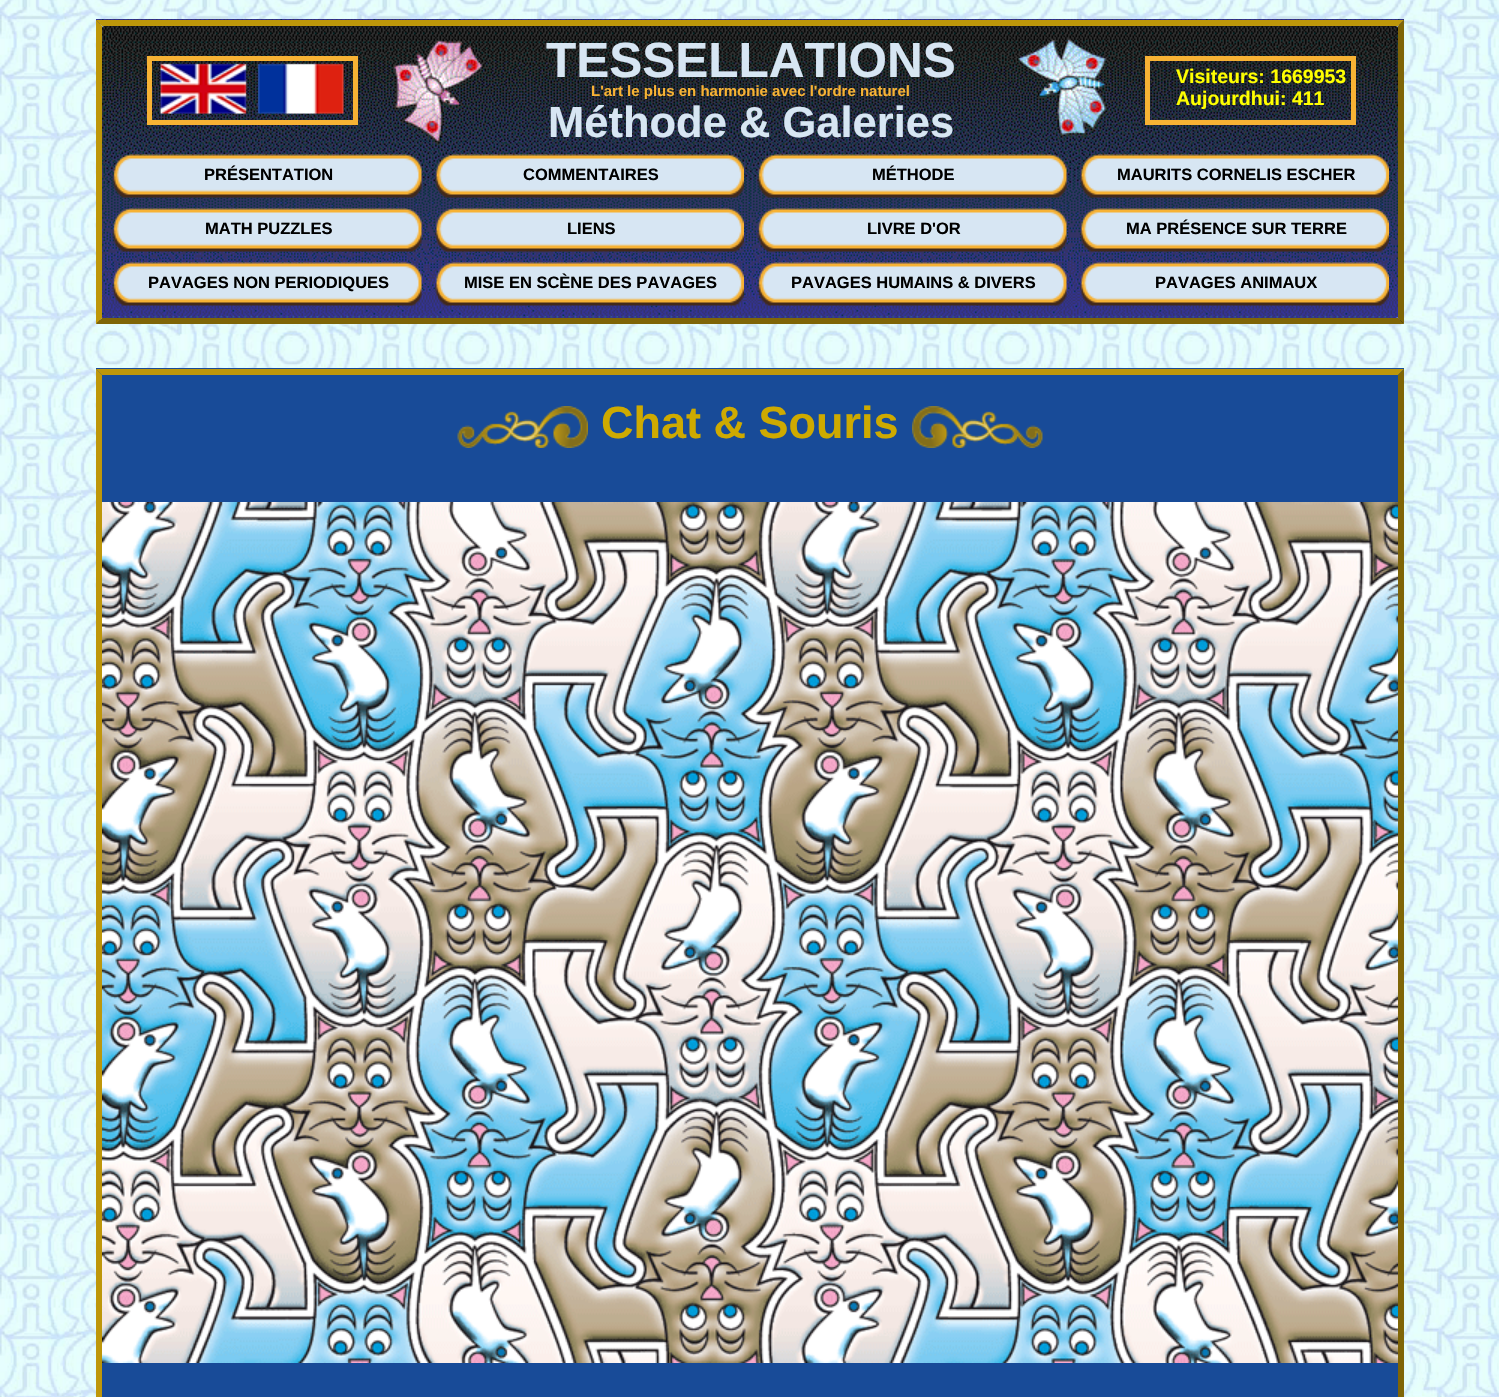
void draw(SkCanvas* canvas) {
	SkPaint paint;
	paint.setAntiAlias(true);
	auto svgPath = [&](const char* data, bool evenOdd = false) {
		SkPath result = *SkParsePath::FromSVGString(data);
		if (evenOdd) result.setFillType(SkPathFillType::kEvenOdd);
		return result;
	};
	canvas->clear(0xffffffff);
	canvas->drawImageRect(SkImages::DeferredFromEncodedData(SkData::MakeFromFileName("img1.png")), SkRect::MakeXYWH(0, 0, 1499, 1397), SkSamplingOptions());
	canvas->drawImageRect(SkImages::DeferredFromEncodedData(SkData::MakeFromFileName("img2.png")), SkRect::MakeXYWH(96, 19, 1308, 305), SkSamplingOptions());
	paint.setColor(0xffbe970a);
	canvas->drawPath(svgPath("M96 20H1404L1398 26H102Z"), paint);
	paint.setColor(0xff7f6507);
	canvas->drawPath(svgPath("M1404 20V324L1398 318V26Z"), paint);
	canvas->drawPath(svgPath("M1404 324H96L102 318H1398Z"), paint);
	paint.setColor(0xffbe970a);
	canvas->drawPath(svgPath("M96 324V20L102 26V318Z"), paint);
	canvas->drawImageRect(SkImages::DeferredFromEncodedData(SkData::MakeFromFileName("img3.png")), SkRect::MakeXYWH(160, 63, 87, 51), SkSamplingOptions());
	paint.setColor(0xfff7b234);
	canvas->drawRect(SkRect::MakeXYWH(147, 56, 210, 5), paint);
	canvas->drawRect(SkRect::MakeXYWH(147, 120, 105, 5), paint);
	canvas->drawRect(SkRect::MakeXYWH(147, 56, 5, 69), paint);
	SkFont f1(fontMgr->matchFamilyStyle("Liberation Sans", SkFontStyle::Bold()), 49.5);
	f1.setSubpixel(true);
	paint.setColor(0xffd7e6f3);
	canvas->drawString("TESSELLATIONS", 546, 77, f1, paint);
	canvas->drawImageRect(SkImages::DeferredFromEncodedData(SkData::MakeFromFileName("img4.png")), SkRect::MakeXYWH(257, 63, 87, 51), SkSamplingOptions());
	paint.setColor(0xfff7b234);
	canvas->drawRect(SkRect::MakeXYWH(353, 56, 5, 69), paint);
	canvas->drawRect(SkRect::MakeXYWH(252, 120, 105, 5), paint);
	SkFont f2(fontMgr->matchFamilyStyle("Liberation Sans", SkFontStyle::Bold()), 15);
	f2.setSubpixel(true);
	canvas->drawString("L'art le plus en harmonie avec l'ordre naturel", 591, 96, f2, paint);
	paint.setStroke(true);
	paint.setStrokeWidth(5);
	canvas->drawRect(SkRect::MakeXYWH(1147.5, 58.5, 206, 64), paint);
	SkFont f3(fontMgr->matchFamilyStyle("Liberation Sans", SkFontStyle::Bold()), 19.5);
	f3.setSubpixel(true);
	paint.setStroke(false);
	paint.setColor(0xffffff00);
	canvas->drawString("Visiteurs: 1669953", 1176, 83, f3, paint);
	canvas->drawString("Aujourdhui: 411", 1176, 105, f3, paint);
	SkFont f4(fontMgr->matchFamilyStyle("Liberation Sans", SkFontStyle::Bold()), 43.5);
	f4.setSubpixel(true);
	paint.setColor(0xffd7e6f3);
	canvas->drawString("Méthode & Galeries", 548, 137, f4, paint);
	canvas->drawImageRect(SkImages::DeferredFromEncodedData(SkData::MakeFromFileName("img5.png")), SkRect::MakeXYWH(112, 154, 310, 44), SkSamplingOptions());
	SkFont f5(fontMgr->matchFamilyStyle("Liberation Sans", SkFontStyle::Bold()), 16.5);
	f5.setSubpixel(true);
	paint.setColor(0xff000000);
	canvas->drawString("PRÉSENTATION", 204, 180, f5, paint);
	canvas->drawImageRect(SkImages::DeferredFromEncodedData(SkData::MakeFromFileName("img6.png")), SkRect::MakeXYWH(435, 154, 309, 44), SkSamplingOptions());
	canvas->drawString("COMMENTAIRES", 523, 180, f5, paint);
	canvas->drawImageRect(SkImages::DeferredFromEncodedData(SkData::MakeFromFileName("img7.png")), SkRect::MakeXYWH(757, 154, 310, 44), SkSamplingOptions());
	canvas->drawString("MÉTHODE", 872, 180, f5, paint);
	canvas->drawImageRect(SkImages::DeferredFromEncodedData(SkData::MakeFromFileName("img8.png")), SkRect::MakeXYWH(1080, 154, 309, 44), SkSamplingOptions());
	canvas->drawString("MAURITS CORNELIS ESCHER", 1117, 180, f5, paint);
	canvas->drawImageRect(SkImages::DeferredFromEncodedData(SkData::MakeFromFileName("img9.png")), SkRect::MakeXYWH(112, 208, 310, 44), SkSamplingOptions());
	canvas->drawString("MATH PUZZLES", 205, 234, f5, paint);
	canvas->drawImageRect(SkImages::DeferredFromEncodedData(SkData::MakeFromFileName("img10.png")), SkRect::MakeXYWH(435, 208, 309, 44), SkSamplingOptions());
	canvas->drawString("LIENS", 567, 234, f5, paint);
	canvas->drawImageRect(SkImages::DeferredFromEncodedData(SkData::MakeFromFileName("img11.png")), SkRect::MakeXYWH(757, 208, 310, 44), SkSamplingOptions());
	canvas->drawString("LIVRE D'OR", 867, 234, f5, paint);
	canvas->drawImageRect(SkImages::DeferredFromEncodedData(SkData::MakeFromFileName("img12.png")), SkRect::MakeXYWH(1080, 208, 309, 44), SkSamplingOptions());
	canvas->drawString("MA PRÉSENCE SUR TERRE", 1126, 234, f5, paint);
	canvas->drawImageRect(SkImages::DeferredFromEncodedData(SkData::MakeFromFileName("img13.png")), SkRect::MakeXYWH(112, 262, 310, 44), SkSamplingOptions());
	canvas->drawString("PAVAGES NON PERIODIQUES", 148, 288, f5, paint);
	canvas->drawImageRect(SkImages::DeferredFromEncodedData(SkData::MakeFromFileName("img14.png")), SkRect::MakeXYWH(435, 262, 309, 44), SkSamplingOptions());
	canvas->drawString("MISE EN SCÈNE DES PAVAGES", 464, 288, f5, paint);
	canvas->drawImageRect(SkImages::DeferredFromEncodedData(SkData::MakeFromFileName("img15.png")), SkRect::MakeXYWH(757, 262, 310, 44), SkSamplingOptions());
	canvas->drawString("PAVAGES HUMAINS & DIVERS", 791, 288, f5, paint);
	canvas->drawImageRect(SkImages::DeferredFromEncodedData(SkData::MakeFromFileName("img16.png")), SkRect::MakeXYWH(1080, 262, 309, 44), SkSamplingOptions());
	canvas->drawString("PAVAGES ANIMAUX", 1155, 288, f5, paint);
	paint.setColor(0xff184b98);
	canvas->drawRect(SkRect::MakeXYWH(96, 368, 1308, 1029), paint);
	paint.setColor(0xffbe970a);
	canvas->drawPath(svgPath("M96 369H1404L1398 375H102Z"), paint);
	paint.setColor(0xff7f6507);
	canvas->drawPath(svgPath("M1404 369V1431L1398 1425V375Z"), paint);
	paint.setColor(0xffbe970a);
	canvas->drawPath(svgPath("M96 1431V369L102 375V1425Z"), paint);
	canvas->drawImageRect(SkImages::DeferredFromEncodedData(SkData::MakeFromFileName("img17.png")), SkRect::MakeXYWH(457, 406, 131, 42), SkSamplingOptions());
	SkFont f6(fontMgr->matchFamilyStyle("Liberation Sans", SkFontStyle::Bold()), 45);
	f6.setSubpixel(true);
	paint.setColor(0xffceaa00);
	canvas->drawString("Chat & Souris", 601, 438, f6, paint);
	canvas->drawImageRect(SkImages::DeferredFromEncodedData(SkData::MakeFromFileName("img18.png")), SkRect::MakeXYWH(912, 406, 131, 42), SkSamplingOptions());
	canvas->drawImageRect(SkImages::DeferredFromEncodedData(SkData::MakeFromFileName("img19.png")), SkRect::MakeXYWH(102, 502, 1296, 861), SkSamplingOptions());
}
